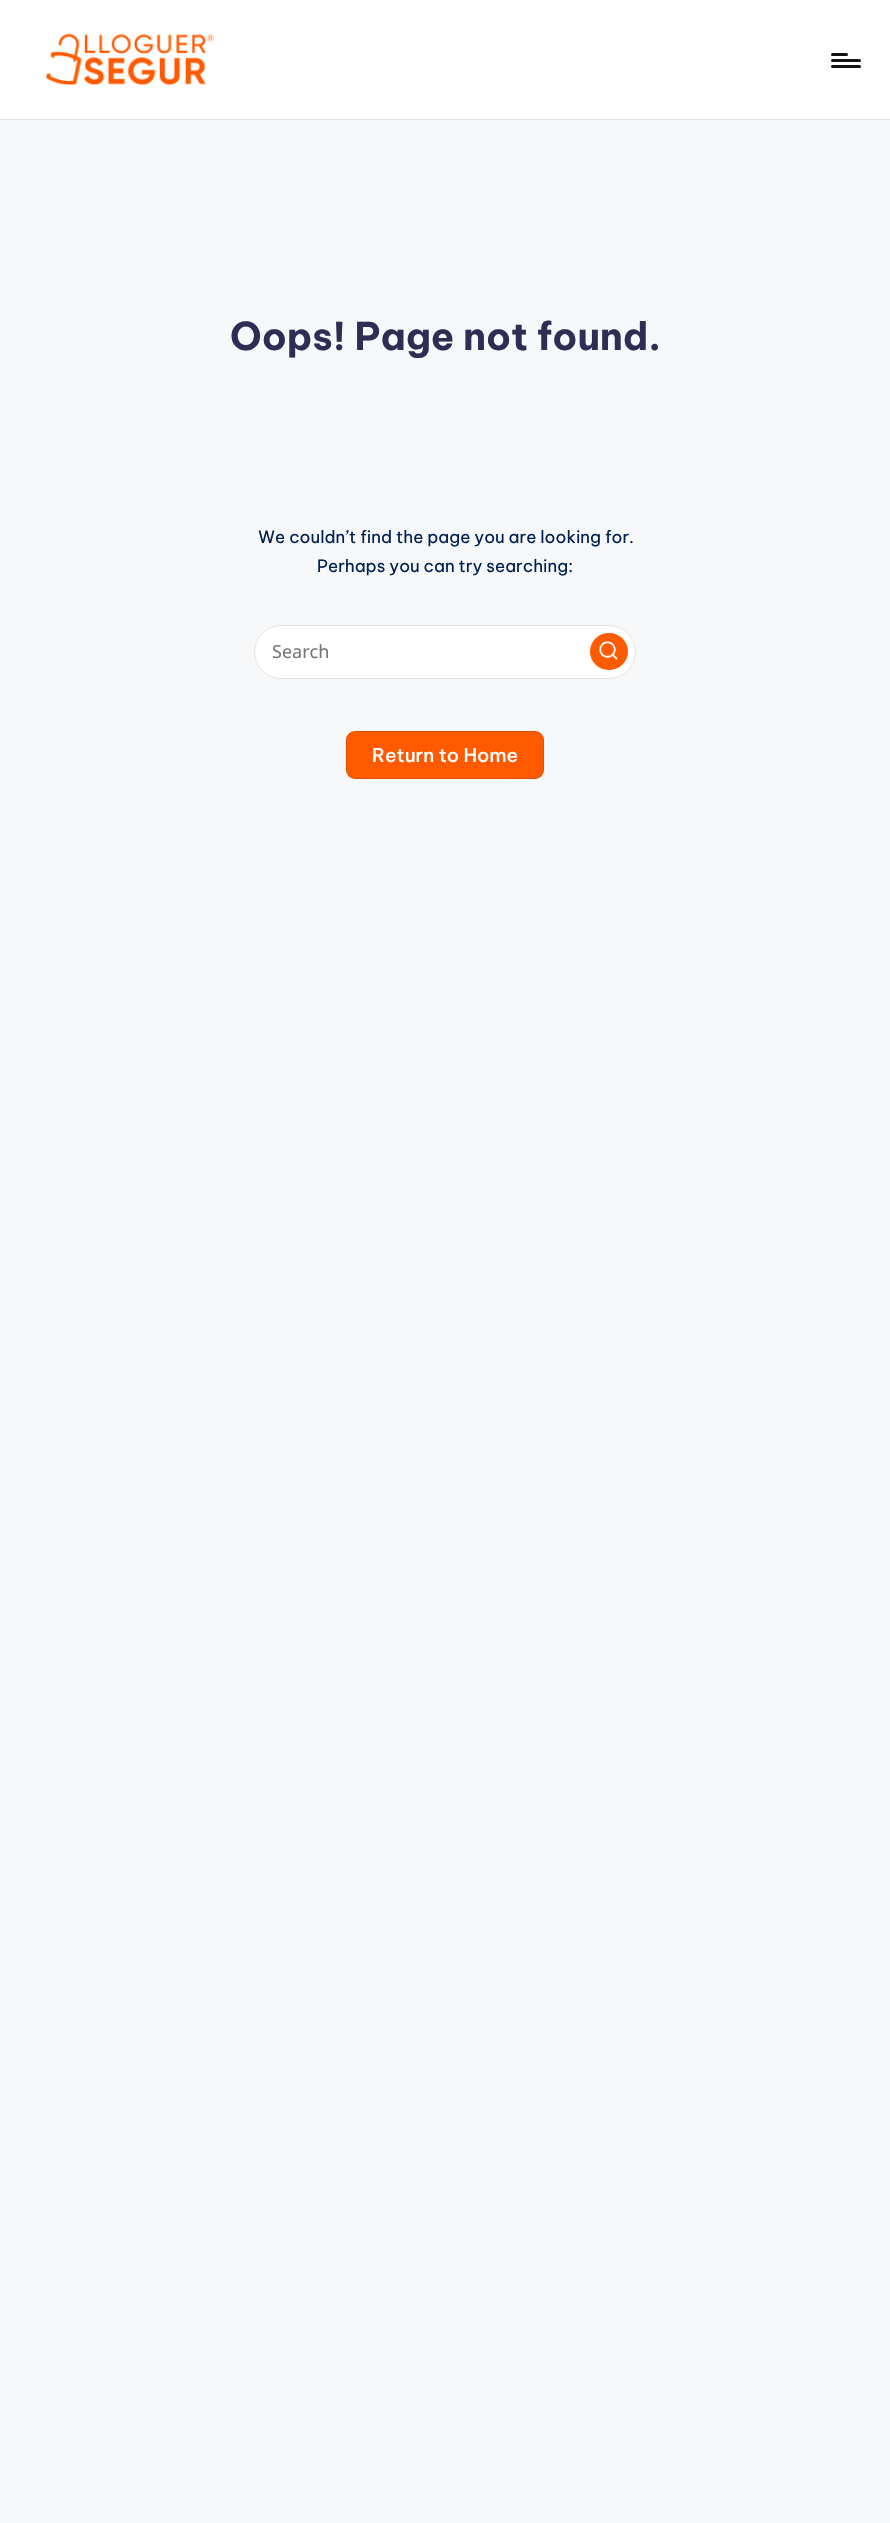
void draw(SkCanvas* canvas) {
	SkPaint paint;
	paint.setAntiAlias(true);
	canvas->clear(0xfff7f8f9);
	paint.setColor(0xffffffff);
	canvas->drawRect(SkRect::MakeXYWH(0, 0, 890, 119), paint);
	paint.setColor(0xffe3e3e3);
	canvas->drawRect(SkRect::MakeXYWH(0, 119, 890, 1), paint);
	canvas->drawImageRect(SkImages::DeferredFromEncodedData(SkData::MakeFromFileName("img1.png")), SkRect::MakeXYWH(45, 33, 169, 53), SkSamplingOptions());
	paint.setColor(0xff131315);
	canvas->drawRoundRect(SkRect::MakeXYWH(831, 59, 30, 3), 1.5, 1.5, paint);
	canvas->drawRoundRect(SkRect::MakeXYWH(831, 53, 17, 3), 1.5, 1.5, paint);
	canvas->drawRoundRect(SkRect::MakeXYWH(831, 65, 30, 3), 1.5, 1.5, paint);
	SkFont f1(fontMgr->matchFamilyStyle("Be Vietnam Pro", SkFontStyle::Bold()), 38.2);
	f1.setSubpixel(true);
	paint.setColor(0xff302d55);
	canvas->drawString("Oops! Page not found.", 230, 350, f1, paint);
	SkFont f2(fontMgr->matchFamilyStyle("Be Vietnam Pro", SkFontStyle::Normal()), 17);
	f2.setSubpixel(true);
	paint.setColor(0xff002050);
	canvas->drawString("We couldn’t find the page you are looking for.", 258, 543, f2, paint);
	canvas->drawString("Perhaps you can try searching:", 317, 572, f2, paint);
	paint.setColor(0xffffffff);
	canvas->drawRoundRect(SkRect::MakeXYWH(254, 625, 382, 54), 27, 27, paint);
	paint.setStroke(true);
	paint.setStrokeWidth(1);
	paint.setColor(0x66b9b9b9);
	canvas->drawRoundRect(SkRect::MakeXYWH(254.5, 625.5, 381, 53), 26.5, 26.5, paint);
	SkFont f3(fontMgr->matchFamilyStyle("Noto Sans", SkFontStyle::Normal()), 18);
	f3.setSubpixel(true);
	paint.setStroke(false);
	paint.setColor(0xff757575);
	canvas->drawString("Search", 272, 658, f3, paint);
	paint.setColor(0xffff5a00);
	canvas->drawRoundRect(SkRect::MakeXYWH(590, 633, 38, 37), 18.5, 18.5, paint);
	canvas->drawImageRect(SkImages::DeferredFromEncodedData(SkData::MakeFromFileName("img2.png")), SkRect::MakeXYWH(599, 641, 19, 19), SkSamplingOptions());
	canvas->drawRoundRect(SkRect::MakeXYWH(346, 731, 198, 48), 9, 9, paint);
	paint.setStroke(true);
	paint.setColor(0x1f000000);
	canvas->drawRoundRect(SkRect::MakeXYWH(346.5, 731.5, 197, 47), 8.5, 8.5, paint);
	SkFont f4(fontMgr->matchFamilyStyle("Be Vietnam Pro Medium", SkFontStyle(500, SkFontStyle::kNormal_Width, SkFontStyle::kUpright_Slant)), 19);
	f4.setSubpixel(true);
	paint.setStroke(false);
	paint.setColor(0xffffffff);
	canvas->drawString("Return to Home", 372, 762, f4, paint);
}
